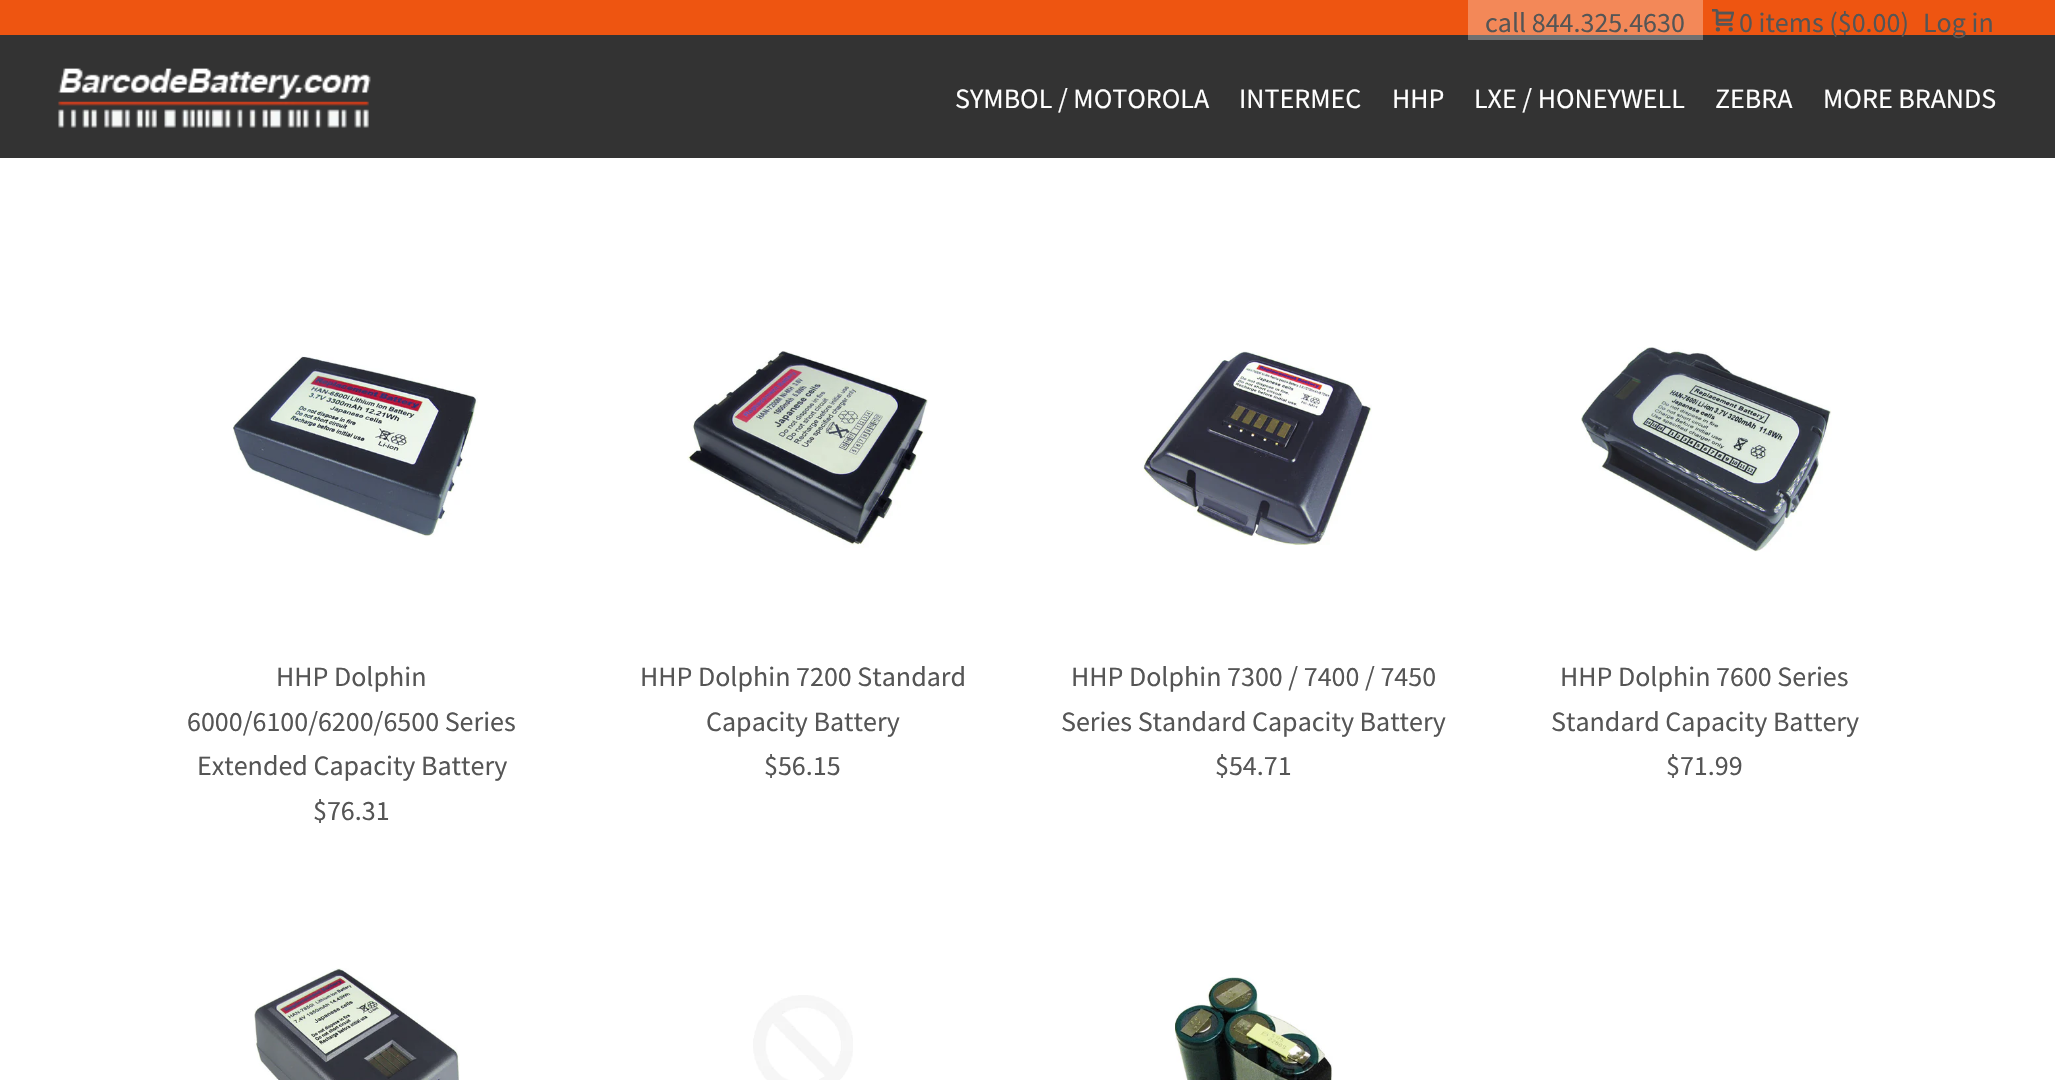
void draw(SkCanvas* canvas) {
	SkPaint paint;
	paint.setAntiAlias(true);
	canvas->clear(0xffffffff);
	paint.setColor(0xff333333);
	canvas->drawRect(SkRect::MakeXYWH(0, 35, 2055, 123), paint);
	paint.setColor(0xff707070);
	canvas->drawRect(SkRect::MakeXYWH(1468, 35, 235, 5), paint);
	paint.setColor(0xffee5511);
	canvas->drawRect(SkRect::MakeXYWH(0, 0, 2055, 35), paint);
	paint.setColor(0xfff38858);
	canvas->drawRect(SkRect::MakeXYWH(1468, 0, 235, 35), paint);
	SkFont f1(fontMgr->matchFamilyStyle("Source Sans Pro", SkFontStyle::Normal()), 28);
	f1.setSubpixel(true);
	paint.setColor(0xff555555);
	canvas->drawString("call 844.325.4630", 1485, 32, f1, paint);
	canvas->drawImageRect(SkImages::DeferredFromEncodedData(SkData::MakeFromFileName("img1.png")), SkRect::MakeXYWH(1712, 9, 22, 23), SkSamplingOptions());
	canvas->drawString("0 items ($0.00)", 1739, 32, f1, paint);
	canvas->drawString("Log in", 1923, 32, f1, paint);
	canvas->drawImageRect(SkImages::DeferredFromEncodedData(SkData::MakeFromFileName("img2.png")), SkRect::MakeXYWH(58, 68, 313, 60), SkSamplingOptions());
	paint.setColor(0xffffffff);
	canvas->drawString("SYMBOL / MOTOROLA", 955, 108, f1, paint);
	canvas->drawString("INTERMEC", 1239, 108, f1, paint);
	canvas->drawString("HHP", 1392, 108, f1, paint);
	canvas->drawString("LXE / HONEYWELL", 1474, 108, f1, paint);
	canvas->drawString("ZEBRA", 1715, 108, f1, paint);
	canvas->drawString("MORE BRANDS", 1823, 108, f1, paint);
	canvas->drawImageRect(SkImages::DeferredFromEncodedData(SkData::MakeFromFileName("img3.png")), SkRect::MakeXYWH(233, 356, 245, 181), SkSamplingOptions());
	paint.setColor(0xff555555);
	canvas->drawString("HHP Dolphin", 276, 686, f1, paint);
	canvas->drawString("6000/6100/6200/6500 Series", 187, 731, f1, paint);
	canvas->drawString("Extended Capacity Battery", 197, 775, f1, paint);
	canvas->drawString("$76.31", 313, 820, f1, paint);
	canvas->drawImageRect(SkImages::DeferredFromEncodedData(SkData::MakeFromFileName("img4.png")), SkRect::MakeXYWH(687, 351, 241, 197), SkSamplingOptions());
	canvas->drawString("HHP Dolphin 7200 Standard", 640, 686, f1, paint);
	canvas->drawString("Capacity Battery", 706, 731, f1, paint);
	canvas->drawString("$56.15", 764, 775, f1, paint);
	canvas->drawImageRect(SkImages::DeferredFromEncodedData(SkData::MakeFromFileName("img5.png")), SkRect::MakeXYWH(1141, 351, 231, 194), SkSamplingOptions());
	canvas->drawString("HHP Dolphin 7300 / 7400 / 7450", 1071, 686, f1, paint);
	canvas->drawString("Series Standard Capacity Battery", 1061, 731, f1, paint);
	canvas->drawString("$54.71", 1215, 775, f1, paint);
	canvas->drawImageRect(SkImages::DeferredFromEncodedData(SkData::MakeFromFileName("img6.png")), SkRect::MakeXYWH(1581, 347, 251, 205), SkSamplingOptions());
	canvas->drawString("HHP Dolphin 7600 Series", 1560, 686, f1, paint);
	canvas->drawString("Standard Capacity Battery", 1551, 731, f1, paint);
	canvas->drawString("$71.99", 1666, 775, f1, paint);
	canvas->drawImageRect(SkImages::DeferredFromEncodedData(SkData::MakeFromFileName("img7.png")), SkRect::MakeXYWH(254, 968, 206, 112), SkSamplingOptions());
	canvas->drawImageRect(SkImages::DeferredFromEncodedData(SkData::MakeFromFileName("img8.png")), SkRect::MakeXYWH(753, 995, 100, 85), SkSamplingOptions());
	canvas->drawImageRect(SkImages::DeferredFromEncodedData(SkData::MakeFromFileName("img9.png")), SkRect::MakeXYWH(1175, 977, 158, 103), SkSamplingOptions());
}
